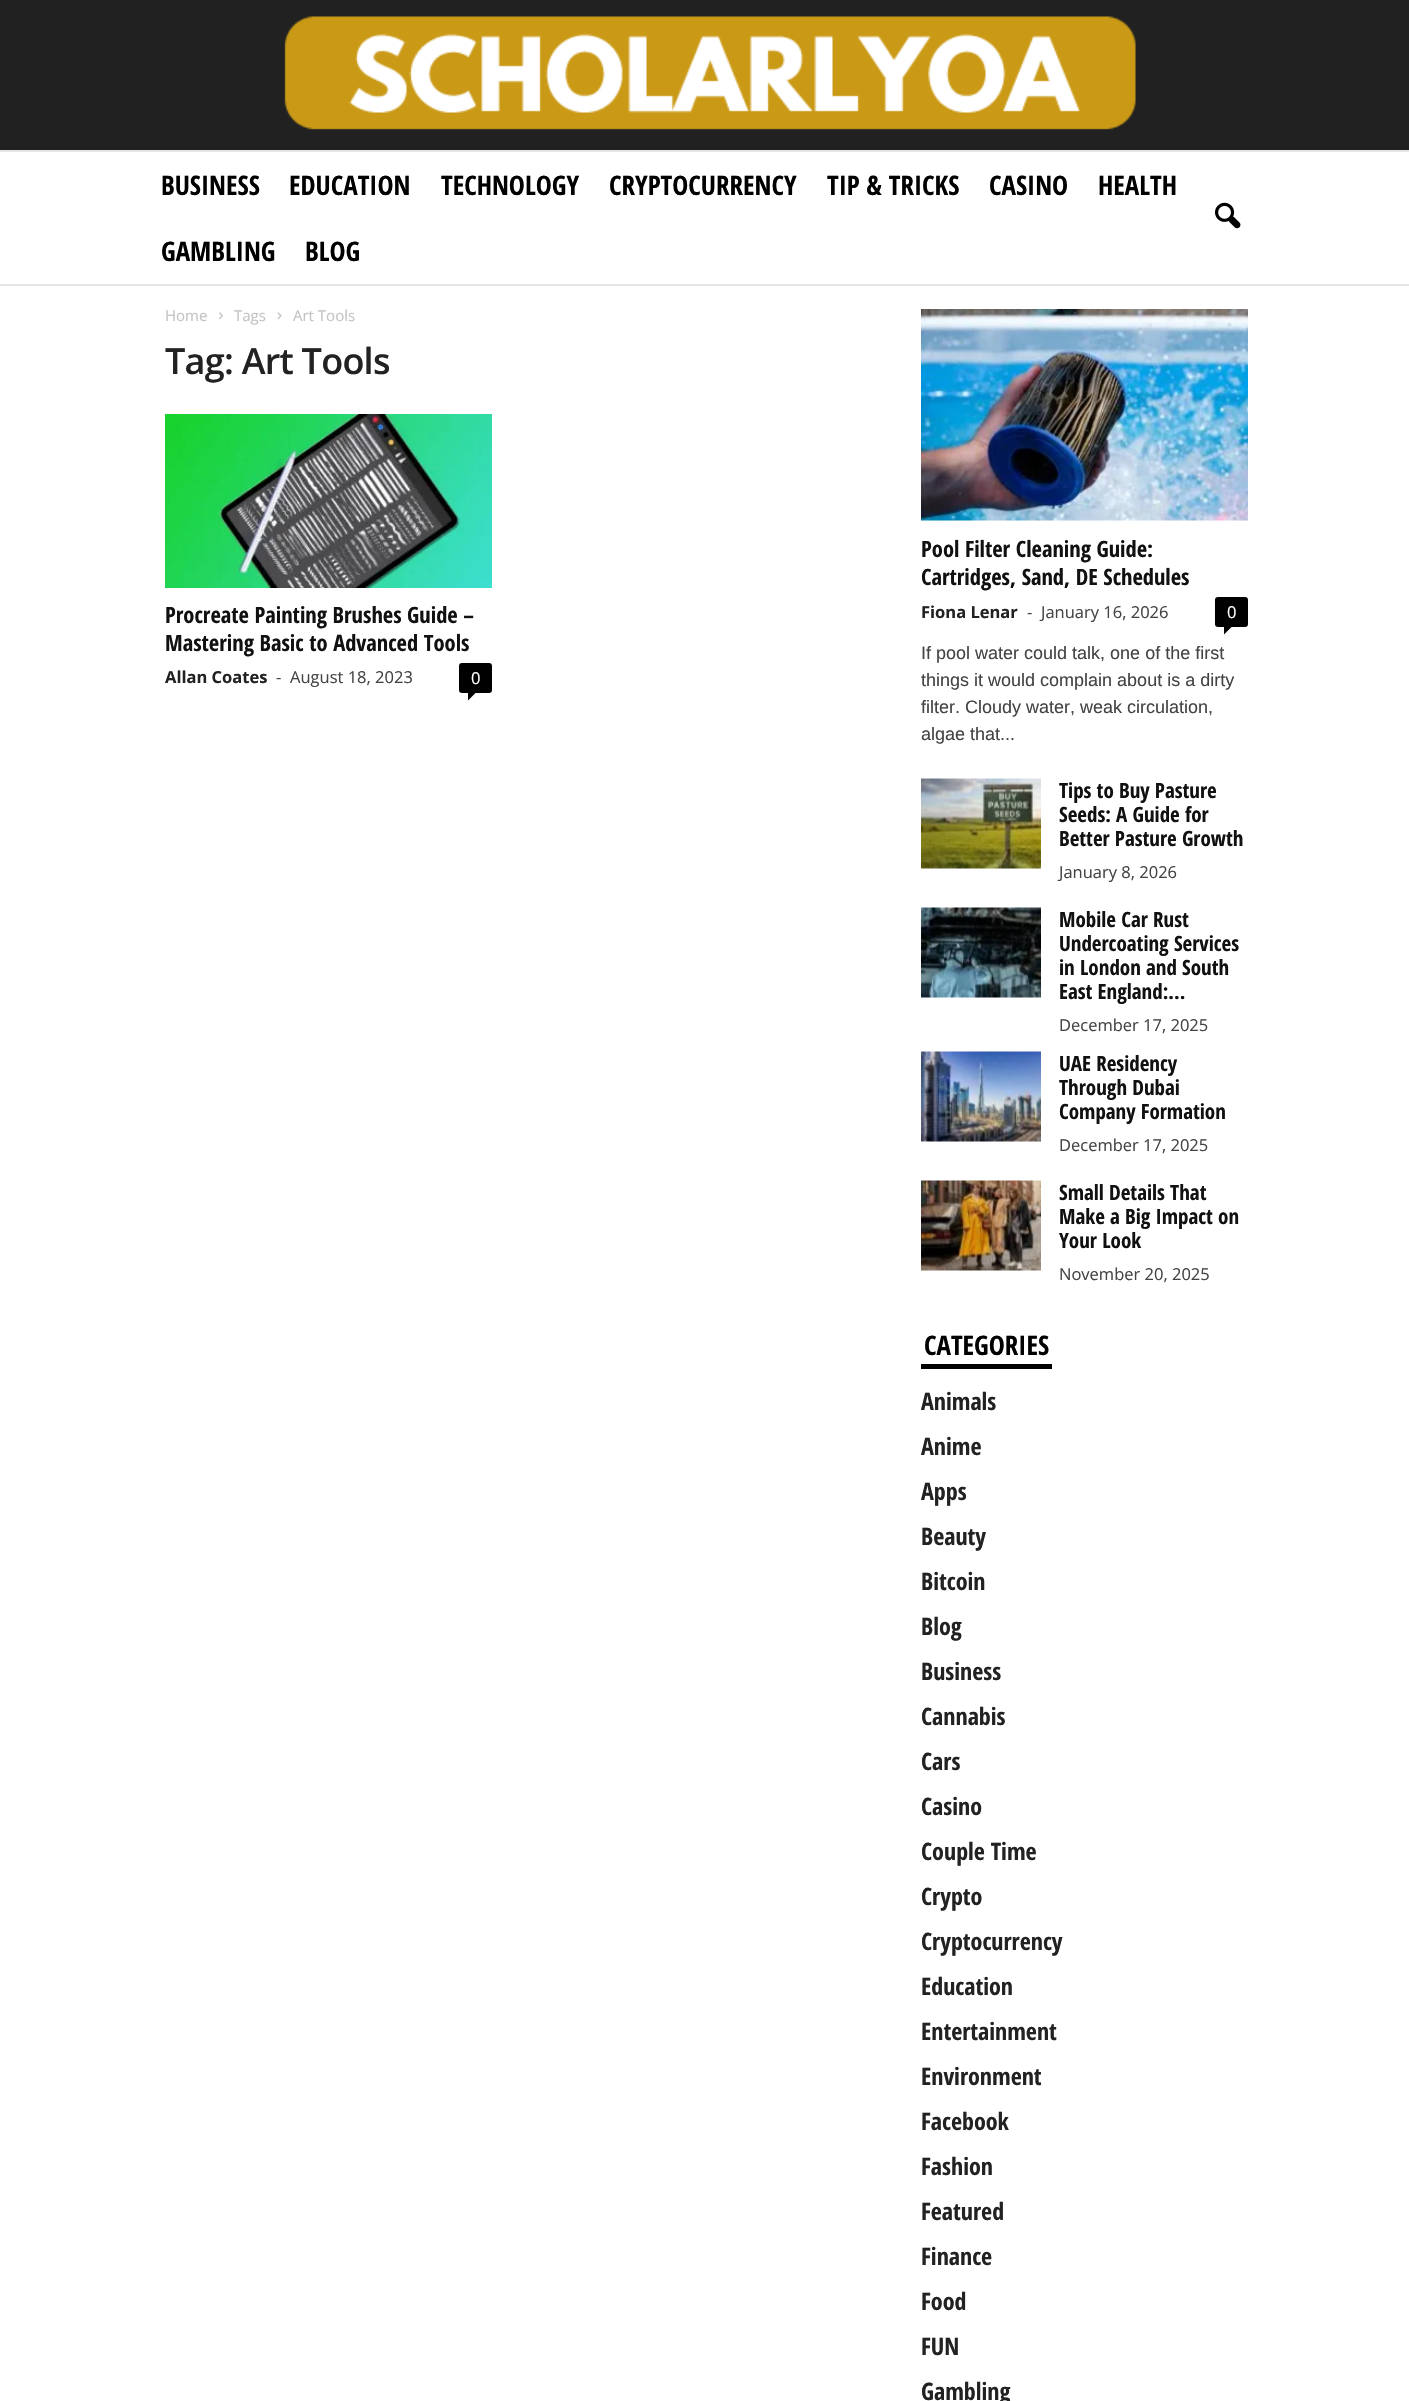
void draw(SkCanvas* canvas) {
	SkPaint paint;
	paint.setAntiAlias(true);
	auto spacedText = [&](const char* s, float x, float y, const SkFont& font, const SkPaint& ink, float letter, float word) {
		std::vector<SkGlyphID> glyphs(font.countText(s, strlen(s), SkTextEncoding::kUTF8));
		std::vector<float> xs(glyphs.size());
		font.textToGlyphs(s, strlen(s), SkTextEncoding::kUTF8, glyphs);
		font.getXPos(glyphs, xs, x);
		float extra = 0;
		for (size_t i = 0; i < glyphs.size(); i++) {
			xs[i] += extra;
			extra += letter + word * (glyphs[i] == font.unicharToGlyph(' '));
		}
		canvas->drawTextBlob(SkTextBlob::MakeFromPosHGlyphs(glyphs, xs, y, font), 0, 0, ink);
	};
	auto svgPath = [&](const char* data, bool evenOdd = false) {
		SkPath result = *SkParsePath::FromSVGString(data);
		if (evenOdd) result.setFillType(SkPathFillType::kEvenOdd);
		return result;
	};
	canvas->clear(0xffffffff);
	paint.setColor(0xff212121);
	canvas->drawRect(SkRect::MakeXYWH(0, 0, 1409, 150), paint);
	canvas->drawImageRect(SkImages::DeferredFromEncodedData(SkData::MakeFromFileName("img1.png")), SkRect::MakeXYWH(284, 16, 852, 114), SkSamplingOptions());
	paint.setColor(0xffe6e6e6);
	canvas->drawRect(SkRect::MakeXYWH(0, 150, 1409, 2), paint);
	canvas->drawRect(SkRect::MakeXYWH(0, 284, 1409, 2), paint);
	SkFont f1(fontMgr->matchFamilyStyle("Open Sans Condensed", SkFontStyle::Bold()), 27);
	f1.setSubpixel(true);
	paint.setColor(0xff000000);
	canvas->drawString("BUSINESS", 161, 195, f1, paint);
	canvas->drawString("EDUCATION", 289, 195, f1, paint);
	canvas->drawString("TECHNOLOGY", 441, 195, f1, paint);
	canvas->drawString("CRYPTOCURRENCY", 609, 195, f1, paint);
	canvas->drawString("TIP & TRICKS", 827, 195, f1, paint);
	canvas->drawString("CASINO", 989, 195, f1, paint);
	canvas->drawString("HEALTH", 1098, 195, f1, paint);
	canvas->drawString("GAMBLING", 161, 261, f1, paint);
	canvas->drawString("BLOG", 305, 261, f1, paint);
	canvas->drawImageRect(SkImages::DeferredFromEncodedData(SkData::MakeFromFileName("img2.png")), SkRect::MakeXYWH(1215, 202, 26, 27), SkSamplingOptions());
	SkFont f2(fontMgr->matchFamilyStyle("Open Sans", SkFontStyle::Normal()), 15);
	f2.setSubpixel(true);
	paint.setColor(0xffc3c3c3);
	canvas->drawString("Home", 165, 321, f2, paint);
	canvas->drawImageRect(SkImages::DeferredFromEncodedData(SkData::MakeFromFileName("img3.png")), SkRect::MakeXYWH(219, 312, 4, 8), SkSamplingOptions());
	canvas->drawString("Tags", 234, 321, f2, paint);
	canvas->drawImageRect(SkImages::DeferredFromEncodedData(SkData::MakeFromFileName("img4.png")), SkRect::MakeXYWH(277, 312, 5, 8), SkSamplingOptions());
	canvas->drawString("Art Tools", 293, 321, f2, paint);
	SkFont f3(fontMgr->matchFamilyStyle("Open Sans", SkFontStyle(600, SkFontStyle::kNormal_Width, SkFontStyle::kUpright_Slant)), 36);
	f3.setSubpixel(true);
	paint.setColor(0xff222222);
	spacedText("Tag: Art Tools", 165, 374, f3, paint, -0.75, 0);
	canvas->drawImageRect(SkImages::DeferredFromEncodedData(SkData::MakeFromFileName("img5.png")), SkRect::MakeXYWH(165, 414, 327, 174), SkSamplingOptions());
	SkFont f4(fontMgr->matchFamilyStyle("Open Sans Condensed", SkFontStyle::Bold()), 22.5);
	f4.setSubpixel(true);
	paint.setColor(0xff111111);
	canvas->drawString("Procreate Painting Brushes Guide –", 165, 623, f4, paint);
	canvas->drawString("Mastering Basic to Advanced Tools", 165, 651, f4, paint);
	SkFont f5(fontMgr->matchFamilyStyle("Open Sans", SkFontStyle::Bold()), 16.5);
	f5.setSubpixel(true);
	paint.setColor(0xff222222);
	canvas->drawString("Allan Coates", 165, 683, f5, paint);
	SkFont f6(fontMgr->matchFamilyStyle("Open Sans", SkFontStyle::Normal()), 16.5);
	f6.setSubpixel(true);
	paint.setColor(0xff444444);
	canvas->drawString("-", 276, 683, f6, paint);
	canvas->drawString("August 18, 2023", 290, 683, f6, paint);
	paint.setColor(0xff000000);
	canvas->drawRoundRect(SkRect::MakeXYWH(459, 663, 33, 30), 3, 3, paint);
	paint.setColor(0xffffffff);
	canvas->drawString("0", 471, 684, f6, paint);
	paint.setColor(0xff000000);
	canvas->drawPath(svgPath("M468 693H475.5L468 700.5Z"), paint);
	canvas->drawImageRect(SkImages::DeferredFromEncodedData(SkData::MakeFromFileName("img6.png")), SkRect::MakeXYWH(921, 309, 327, 212), SkSamplingOptions());
	paint.setColor(0xff111111);
	canvas->drawString("Pool Filter Cleaning Guide:", 921, 557, f4, paint);
	canvas->drawString("Cartridges, Sand, DE Schedules", 921, 585, f4, paint);
	paint.setColor(0xff222222);
	canvas->drawString("Fiona Lenar", 921, 618, f5, paint);
	paint.setColor(0xff444444);
	canvas->drawString("-", 1027, 618, f6, paint);
	canvas->drawString("January 16, 2026", 1041, 618, f6, paint);
	paint.setColor(0xff000000);
	canvas->drawRoundRect(SkRect::MakeXYWH(1215, 597, 33, 30), 3, 3, paint);
	paint.setColor(0xffffffff);
	canvas->drawString("0", 1227, 618, f6, paint);
	paint.setColor(0xff000000);
	canvas->drawPath(svgPath("M1224 627H1231.5L1224 634.5Z"), paint);
	SkFont f7(fontMgr->matchFamilyStyle("Liberation Sans", SkFontStyle::Normal()), 18);
	f7.setSubpixel(true);
	paint.setColor(0xff444444);
	canvas->drawString("If pool water could talk, one of the first", 921, 659, f7, paint);
	canvas->drawString("things it would complain about is a dirty", 921, 686, f7, paint);
	canvas->drawString("filter. Cloudy water, weak circulation,", 921, 713, f7, paint);
	canvas->drawString("algae that...", 921, 740, f7, paint);
	canvas->drawImageRect(SkImages::DeferredFromEncodedData(SkData::MakeFromFileName("img7.png")), SkRect::MakeXYWH(921, 778, 120, 91), SkSamplingOptions());
	SkFont f8(fontMgr->matchFamilyStyle("Open Sans Condensed", SkFontStyle::Bold()), 21);
	f8.setSubpixel(true);
	paint.setColor(0xff111111);
	canvas->drawString("Tips to Buy Pasture", 1059, 798, f8, paint);
	canvas->drawString("Seeds: A Guide for", 1059, 822, f8, paint);
	canvas->drawString("Better Pasture Growth", 1059, 846, f8, paint);
	paint.setColor(0xff444444);
	canvas->drawString("January 8, 2026", 1059, 878, f6, paint);
	canvas->drawImageRect(SkImages::DeferredFromEncodedData(SkData::MakeFromFileName("img8.png")), SkRect::MakeXYWH(921, 907, 120, 91), SkSamplingOptions());
	paint.setColor(0xff111111);
	canvas->drawString("Mobile Car Rust", 1059, 927, f8, paint);
	canvas->drawString("Undercoating Services", 1059, 951, f8, paint);
	canvas->drawString("in London and South", 1059, 975, f8, paint);
	canvas->drawString("East England:...", 1059, 999, f8, paint);
	paint.setColor(0xff444444);
	canvas->drawString("December 17, 2025", 1059, 1031, f6, paint);
	canvas->drawImageRect(SkImages::DeferredFromEncodedData(SkData::MakeFromFileName("img9.png")), SkRect::MakeXYWH(921, 1051, 120, 91), SkSamplingOptions());
	paint.setColor(0xff111111);
	canvas->drawString("UAE Residency", 1059, 1071, f8, paint);
	canvas->drawString("Through Dubai", 1059, 1095, f8, paint);
	canvas->drawString("Company Formation", 1059, 1119, f8, paint);
	paint.setColor(0xff444444);
	canvas->drawString("December 17, 2025", 1059, 1151, f6, paint);
	canvas->drawImageRect(SkImages::DeferredFromEncodedData(SkData::MakeFromFileName("img10.png")), SkRect::MakeXYWH(921, 1180, 120, 91), SkSamplingOptions());
	paint.setColor(0xff111111);
	canvas->drawString("Small Details That", 1059, 1200, f8, paint);
	canvas->drawString("Make a Big Impact on", 1059, 1224, f8, paint);
	canvas->drawString("Your Look", 1059, 1248, f8, paint);
	paint.setColor(0xff444444);
	canvas->drawString("November 20, 2025", 1059, 1280, f6, paint);
	paint.setColor(0xff000000);
	canvas->drawRect(SkRect::MakeXYWH(921, 1364, 131, 5), paint);
	canvas->drawString("CATEGORIES", 924, 1355, f1, paint);
	SkFont f9(fontMgr->matchFamilyStyle("Open Sans Condensed", SkFontStyle::Bold()), 24);
	f9.setSubpixel(true);
	paint.setColor(0xff222222);
	canvas->drawString("Animals", 921, 1410, f9, paint);
	canvas->drawString("Anime", 921, 1455, f9, paint);
	canvas->drawString("Apps", 921, 1500, f9, paint);
	canvas->drawString("Beauty", 921, 1545, f9, paint);
	canvas->drawString("Bitcoin", 921, 1590, f9, paint);
	canvas->drawString("Blog", 921, 1635, f9, paint);
	canvas->drawString("Business", 921, 1680, f9, paint);
	canvas->drawString("Cannabis", 921, 1725, f9, paint);
	canvas->drawString("Cars", 921, 1770, f9, paint);
	canvas->drawString("Casino", 921, 1815, f9, paint);
	canvas->drawString("Couple Time", 921, 1860, f9, paint);
	canvas->drawString("Crypto", 921, 1905, f9, paint);
	canvas->drawString("Cryptocurrency", 921, 1950, f9, paint);
	canvas->drawString("Education", 921, 1995, f9, paint);
	canvas->drawString("Entertainment", 921, 2040, f9, paint);
	canvas->drawString("Environment", 921, 2085, f9, paint);
	canvas->drawString("Facebook", 921, 2130, f9, paint);
	canvas->drawString("Fashion", 921, 2175, f9, paint);
	canvas->drawString("Featured", 921, 2220, f9, paint);
	canvas->drawString("Finance", 921, 2265, f9, paint);
	canvas->drawString("Food", 921, 2310, f9, paint);
	canvas->drawString("FUN", 921, 2355, f9, paint);
	canvas->drawString("Gambling", 921, 2400, f9, paint);
}
